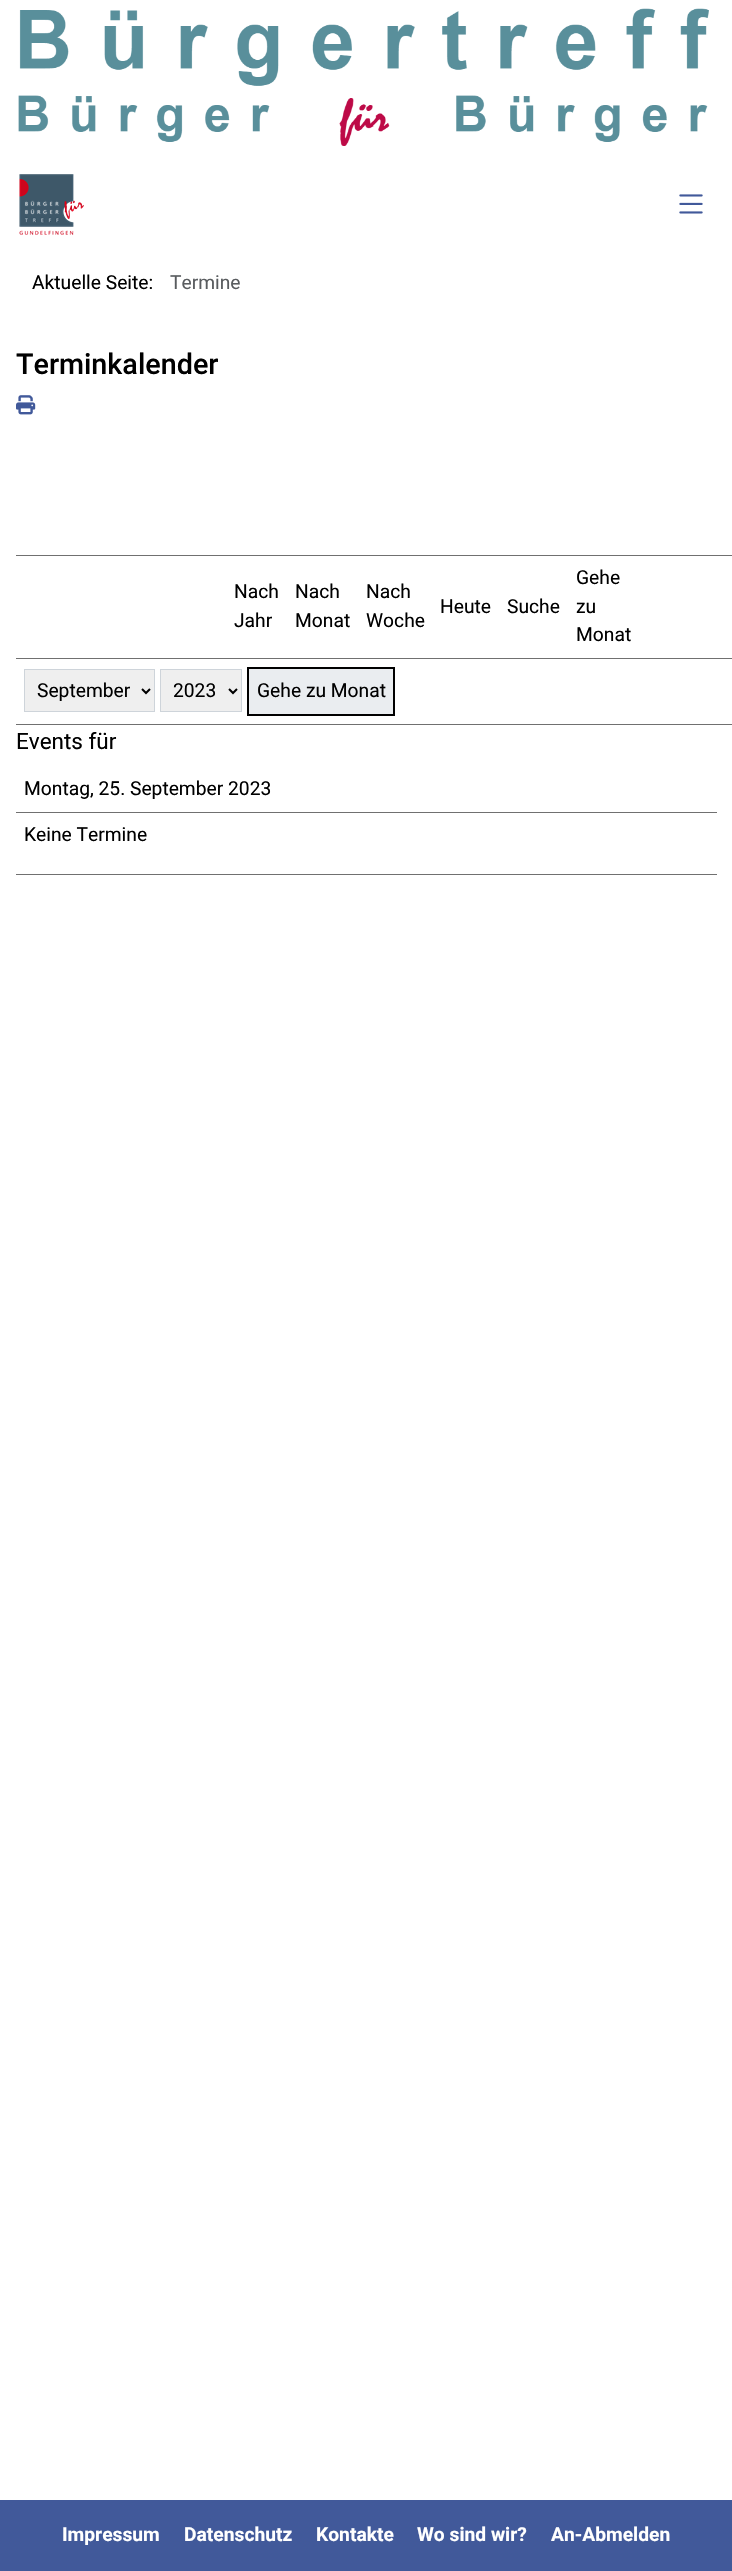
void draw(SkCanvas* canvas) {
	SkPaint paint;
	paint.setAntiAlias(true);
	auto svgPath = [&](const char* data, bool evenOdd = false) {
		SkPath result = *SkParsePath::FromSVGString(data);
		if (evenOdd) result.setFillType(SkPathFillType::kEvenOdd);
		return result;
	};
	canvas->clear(0xffffffff);
	canvas->drawImageRect(SkImages::DeferredFromEncodedData(SkData::MakeFromFileName("img1.png")), SkRect::MakeXYWH(18, 8, 691, 138), SkSamplingOptions());
	canvas->drawImageRect(SkImages::DeferredFromEncodedData(SkData::MakeFromFileName("img2.png")), SkRect::MakeXYWH(19, 174, 65, 61), SkSamplingOptions());
	canvas->drawImageRect(SkImages::DeferredFromEncodedData(SkData::MakeFromFileName("img3.png")), SkRect::MakeXYWH(679, 194, 24, 20), SkSamplingOptions());
	SkFont f1(fontMgr->matchFamilyStyle("Roboto", SkFontStyle::Normal()), 19.25);
	f1.setSubpixel(true);
	paint.setColor(0xff000000);
	canvas->drawString("Aktuelle Seite:", 32, 289, f1, paint);
	paint.setColor(0xff595c5f);
	canvas->drawString("Termine", 170, 289, f1, paint);
	SkFont f2(fontMgr->matchFamilyStyle("Roboto", SkFontStyle(500, SkFontStyle::kNormal_Width, SkFontStyle::kUpright_Slant)), 28.75);
	f2.setSubpixel(true);
	paint.setColor(0xff000000);
	canvas->drawString("Terminkalender", 16, 374, f2, paint);
	canvas->drawImageRect(SkImages::DeferredFromEncodedData(SkData::MakeFromFileName("img4.png")), SkRect::MakeXYWH(16, 395, 20, 20), SkSamplingOptions());
	paint.setColor(0xff707070);
	canvas->drawRect(SkRect::MakeXYWH(16, 555, 716, 1), paint);
	paint.setColor(0xff000000);
	canvas->drawString("Nach", 234, 598, f1, paint);
	canvas->drawString("Jahr", 234, 627, f1, paint);
	canvas->drawString("Nach", 295, 598, f1, paint);
	canvas->drawString("Monat", 295, 627, f1, paint);
	canvas->drawString("Nach", 366, 598, f1, paint);
	canvas->drawString("Woche", 366, 627, f1, paint);
	canvas->drawString("Heute", 440, 613, f1, paint);
	canvas->drawString("Suche", 507, 613, f1, paint);
	canvas->drawString("Gehe", 576, 584, f1, paint);
	canvas->drawString("zu", 576, 613, f1, paint);
	canvas->drawString("Monat", 576, 641, f1, paint);
	paint.setColor(0xff707070);
	canvas->drawRect(SkRect::MakeXYWH(16, 658, 716, 1), paint);
	canvas->drawRect(SkRect::MakeXYWH(16, 724, 716, 1), paint);
	paint.setColor(0xffefefef);
	canvas->drawRect(SkRect::MakeXYWH(24.5, 669.5, 130, 42), paint);
	paint.setStroke(true);
	paint.setStrokeWidth(1);
	paint.setColor(0xffced4da);
	canvas->drawRect(SkRect::MakeXYWH(24.5, 669.5, 130, 42), paint);
	paint.setStrokeWidth(2);
	paint.setColor(0xff000000);
	canvas->drawPath(svgPath("M142 689L146 693L150 689"), paint);
	paint.setStroke(false);
	canvas->drawString("September", 37, 697, f1, paint);
	paint.setColor(0xffefefef);
	canvas->drawRect(SkRect::MakeXYWH(160.5, 669.5, 81, 42), paint);
	paint.setStroke(true);
	paint.setStrokeWidth(1);
	paint.setColor(0xffced4da);
	canvas->drawRect(SkRect::MakeXYWH(160.5, 669.5, 81, 42), paint);
	paint.setStrokeWidth(2);
	paint.setColor(0xff000000);
	canvas->drawPath(svgPath("M229 689L233 693L237 689"), paint);
	paint.setStroke(false);
	canvas->drawString("2023", 173, 697, f1, paint);
	paint.setColor(0xffeaedf0);
	canvas->drawRect(SkRect::MakeXYWH(248, 668, 146, 47), paint);
	paint.setStroke(true);
	paint.setColor(0xff000000);
	canvas->drawRect(SkRect::MakeXYWH(248, 668, 146, 47), paint);
	paint.setStroke(false);
	canvas->drawString("Gehe zu Monat", 257, 697, f1, paint);
	SkFont f3(fontMgr->matchFamilyStyle("Roboto", SkFontStyle::Normal()), 22.5);
	f3.setSubpixel(true);
	canvas->drawString("Events für", 16, 749, f3, paint);
	paint.setColor(0xff707070);
	canvas->drawRect(SkRect::MakeXYWH(16, 812, 701, 1), paint);
	paint.setColor(0xff000000);
	canvas->drawString("Montag, 25. September 2023", 24, 795, f1, paint);
	paint.setColor(0xff707070);
	canvas->drawRect(SkRect::MakeXYWH(16, 874, 701, 1), paint);
	paint.setColor(0xff000000);
	canvas->drawString("Keine Termine", 24, 841, f1, paint);
	paint.setColor(0xff41599a);
	canvas->drawRect(SkRect::MakeXYWH(0, 2500, 732, 71), paint);
	SkFont f4(fontMgr->matchFamilyStyle("Roboto", SkFontStyle::Bold()), 19.25);
	f4.setSubpixel(true);
	paint.setColor(0xffffffff);
	canvas->drawString("Impressum", 62, 2541, f4, paint);
	canvas->drawString("Datenschutz", 184, 2541, f4, paint);
	canvas->drawString("Kontakte", 316, 2541, f4, paint);
	canvas->drawString("Wo sind wir?", 417, 2541, f4, paint);
	canvas->drawString("An-Abmelden", 551, 2541, f4, paint);
}
